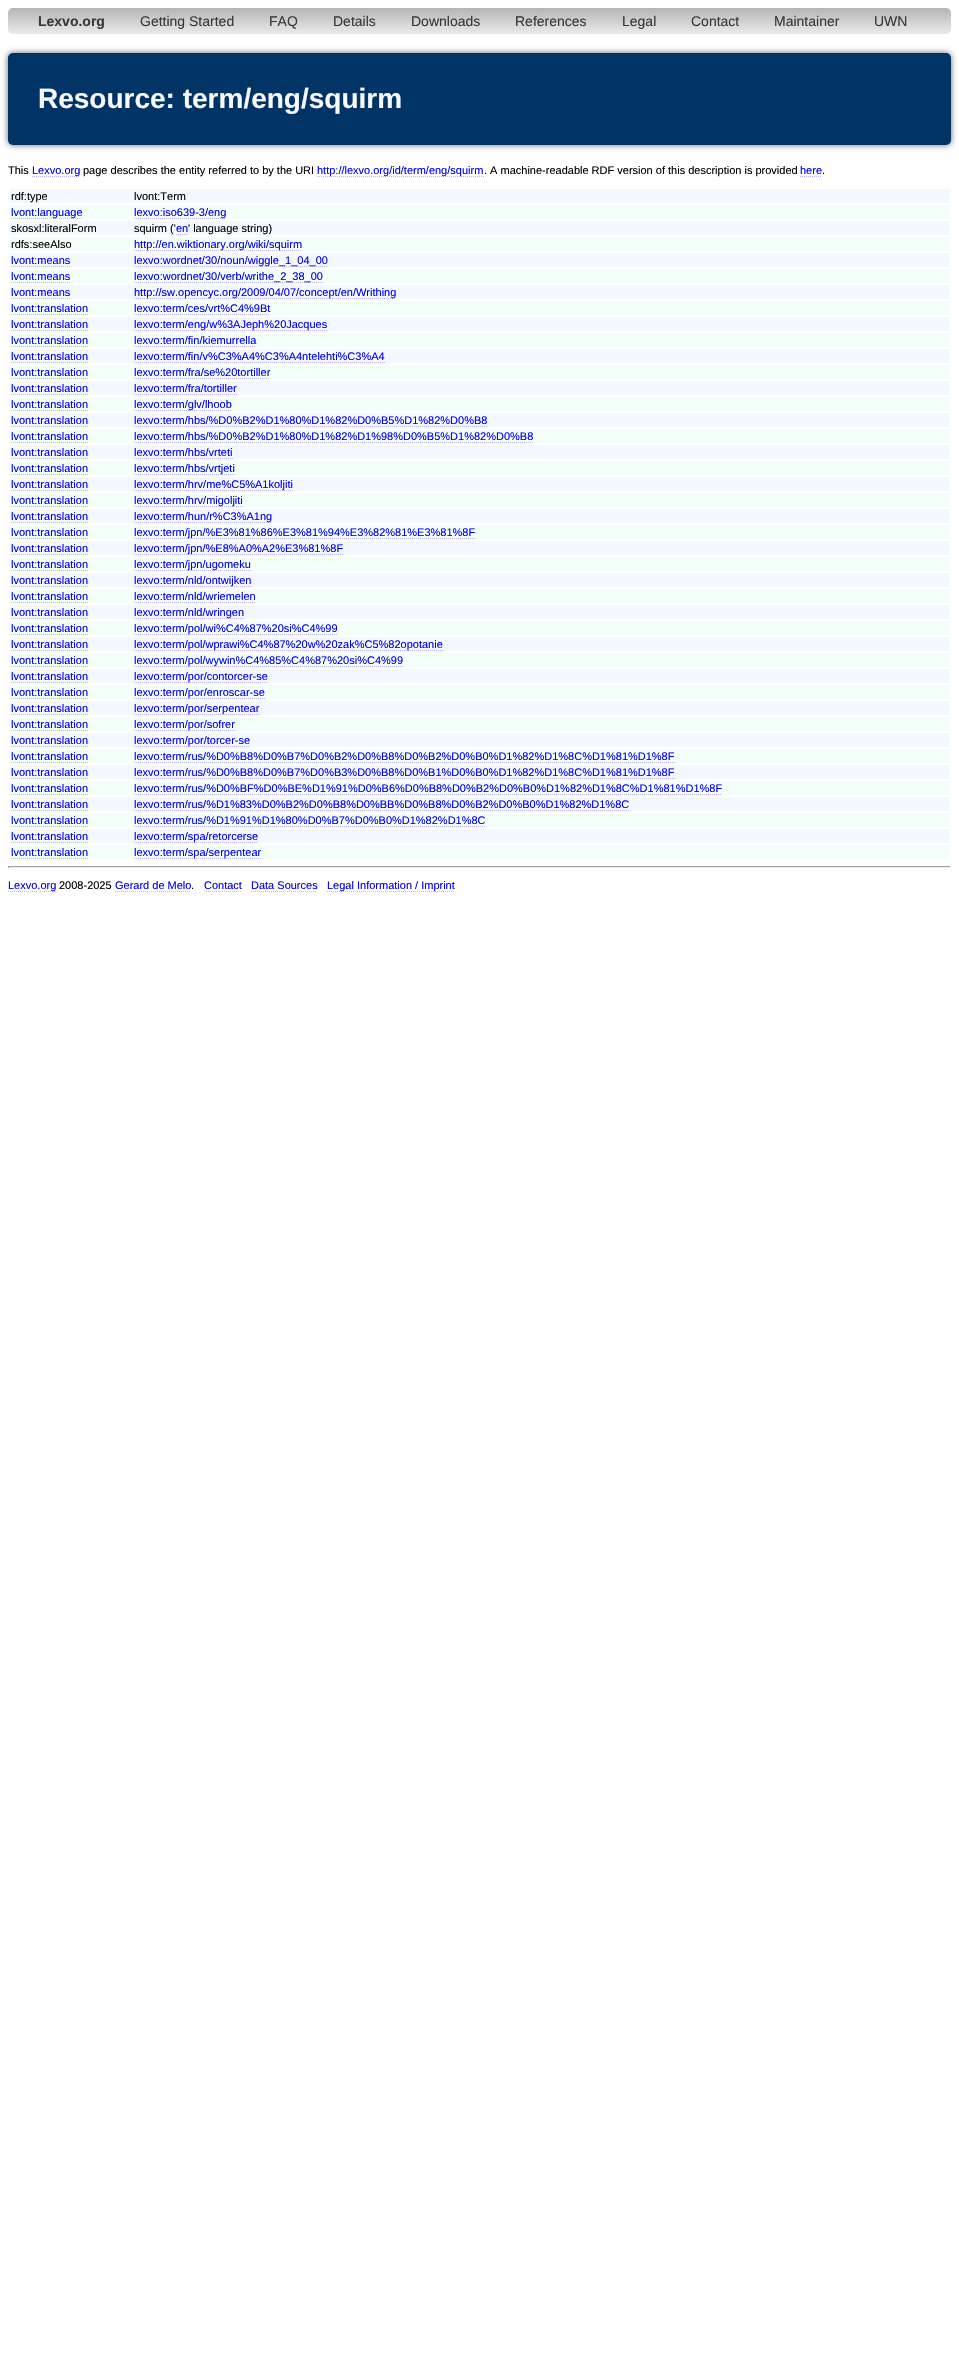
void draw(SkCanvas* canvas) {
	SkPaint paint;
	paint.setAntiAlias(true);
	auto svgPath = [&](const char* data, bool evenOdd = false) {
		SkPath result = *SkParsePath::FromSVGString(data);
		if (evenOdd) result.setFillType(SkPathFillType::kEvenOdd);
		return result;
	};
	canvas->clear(0xffffffff);
	{
		const SkColor colors[] = {0xffb5b5b5, 0xffeaeaea};
		const float stops[] = {0, 1};
		const SkPoint ends[] = {{480, 8}, {480, 34}};
		paint.setShader(SkGradientShader::MakeLinear(ends, colors, stops, 2, SkTileMode::kClamp));
		paint.setAlpha(255);
	}
	canvas->drawRoundRect(SkRect::MakeXYWH(8, 8, 943, 26), 5, 5, paint);
	SkFont f1(fontMgr->matchFamilyStyle("Liberation Sans", SkFontStyle::Bold()), 14);
	f1.setSubpixel(true);
	paint.setShader(nullptr);
	paint.setColor(0xff383838);
	canvas->drawString("Lexvo.org", 38, 26, f1, paint);
	SkFont f2(fontMgr->matchFamilyStyle("Liberation Sans", SkFontStyle::Normal()), 14);
	f2.setSubpixel(true);
	canvas->drawString("Getting Started", 140, 26, f2, paint);
	canvas->drawString("FAQ", 269, 26, f2, paint);
	canvas->drawString("Details", 333, 26, f2, paint);
	canvas->drawString("Downloads", 411, 26, f2, paint);
	canvas->drawString("References", 515, 26, f2, paint);
	canvas->drawString("Legal", 622, 26, f2, paint);
	canvas->drawString("Contact", 691, 26, f2, paint);
	canvas->drawString("Maintainer", 774, 26, f2, paint);
	canvas->drawString("UWN", 874, 26, f2, paint);
	paint.setColor(0x99000000);
	paint.setMaskFilter(SkMaskFilter::MakeBlur(kNormal_SkBlurStyle, 3));
	canvas->drawRoundRect(SkRect::MakeXYWH(8, 53, 943, 92), 5, 5, paint);
	paint.setMaskFilter(nullptr);
	paint.setColor(0xff003366);
	canvas->drawRoundRect(SkRect::MakeXYWH(8, 53, 943, 92), 5, 5, paint);
	SkFont f3(fontMgr->matchFamilyStyle("Liberation Sans", SkFontStyle::Bold()), 28);
	f3.setSubpixel(true);
	paint.setColor(0xfff8f8f8);
	canvas->drawString("Resource: term/eng/squirm", 38, 108, f3, paint);
	SkFont f4(fontMgr->matchFamilyStyle("Liberation Sans", SkFontStyle::Normal()), 11);
	f4.setSubpixel(true);
	paint.setColor(0xff000000);
	canvas->drawString("This", 8, 174, f4, paint);
	paint.setStroke(true);
	paint.setStrokeWidth(1);
	paint.setColor(0xffbfb6ff);
	paint.setPathEffect(SkDashPathEffect::Make({{1, 1}}, 0));
	canvas->drawPath(svgPath("M32 176.5H80"), paint);
	paint.setPathEffect(nullptr);
	paint.setStroke(false);
	paint.setColor(0xff0000ee);
	canvas->drawString("Lexvo.org", 32, 174, f4, paint);
	paint.setColor(0xff000000);
	canvas->drawString("page describes the entity referred to by the URI", 83, 174, f4, paint);
	paint.setStroke(true);
	paint.setColor(0xffbfb6ff);
	paint.setPathEffect(SkDashPathEffect::Make({{1, 1}}, 0));
	canvas->drawPath(svgPath("M317 176.5H484"), paint);
	paint.setPathEffect(nullptr);
	paint.setStroke(false);
	paint.setColor(0xff0000ee);
	canvas->drawString("http://lexvo.org/id/term/eng/squirm", 317, 174, f4, paint);
	paint.setColor(0xff000000);
	canvas->drawString(". A machine-readable RDF version of this description is provided", 484, 174, f4, paint);
	paint.setColor(0xff0000ee);
	canvas->drawString("here", 800, 174, f4, paint);
	paint.setStroke(true);
	paint.setColor(0xffbfb6ff);
	paint.setPathEffect(SkDashPathEffect::Make({{1, 1}}, 0));
	canvas->drawPath(svgPath("M800 176.5H822"), paint);
	paint.setPathEffect(nullptr);
	paint.setStroke(false);
	paint.setColor(0xff000000);
	canvas->drawString(".", 822, 174, f4, paint);
	paint.setColor(0xfff3f8ff);
	canvas->drawRect(SkRect::MakeXYWH(10, 189, 939, 14), paint);
	paint.setColor(0xff000000);
	canvas->drawString("rdf:type", 11, 200, f4, paint);
	canvas->drawString("lvont:Term", 134, 200, f4, paint);
	paint.setColor(0xfff3fff8);
	canvas->drawRect(SkRect::MakeXYWH(10, 205, 939, 14), paint);
	paint.setStroke(true);
	paint.setColor(0xffbfb6ff);
	paint.setPathEffect(SkDashPathEffect::Make({{1, 1}}, 0));
	canvas->drawPath(svgPath("M11 218.5H83"), paint);
	paint.setPathEffect(nullptr);
	paint.setStroke(false);
	paint.setColor(0xff0000ee);
	canvas->drawString("lvont:language", 11, 216, f4, paint);
	paint.setStroke(true);
	paint.setColor(0xffbfb6ff);
	paint.setPathEffect(SkDashPathEffect::Make({{1, 1}}, 0));
	canvas->drawPath(svgPath("M134 218.5H226"), paint);
	paint.setPathEffect(nullptr);
	paint.setStroke(false);
	paint.setColor(0xff0000ee);
	canvas->drawString("lexvo:iso639-3/eng", 134, 216, f4, paint);
	paint.setColor(0xfff3f8ff);
	canvas->drawRect(SkRect::MakeXYWH(10, 221, 939, 14), paint);
	paint.setColor(0xff000000);
	canvas->drawString("skosxl:literalForm", 11, 232, f4, paint);
	canvas->drawString("squirm ('", 134, 232, f4, paint);
	paint.setColor(0xff0000ee);
	canvas->drawString("en", 176, 232, f4, paint);
	paint.setStroke(true);
	paint.setColor(0xffbfb6ff);
	paint.setPathEffect(SkDashPathEffect::Make({{1, 1}}, 0));
	canvas->drawPath(svgPath("M176 234.5H188"), paint);
	paint.setPathEffect(nullptr);
	paint.setStroke(false);
	paint.setColor(0xff000000);
	canvas->drawString("' language string)", 188, 232, f4, paint);
	paint.setColor(0xfff3fff8);
	canvas->drawRect(SkRect::MakeXYWH(10, 237, 939, 14), paint);
	paint.setColor(0xff000000);
	canvas->drawString("rdfs:seeAlso", 11, 248, f4, paint);
	paint.setStroke(true);
	paint.setColor(0xffbfb6ff);
	paint.setPathEffect(SkDashPathEffect::Make({{1, 1}}, 0));
	canvas->drawPath(svgPath("M134 250.5H302"), paint);
	paint.setPathEffect(nullptr);
	paint.setStroke(false);
	paint.setColor(0xff0000ee);
	canvas->drawString("http://en.wiktionary.org/wiki/squirm", 134, 248, f4, paint);
	paint.setColor(0xfff3f8ff);
	canvas->drawRect(SkRect::MakeXYWH(10, 253, 939, 14), paint);
	paint.setColor(0xff0000ee);
	canvas->drawString("lvont:means", 11, 264, f4, paint);
	paint.setStroke(true);
	paint.setColor(0xffbfb6ff);
	paint.setPathEffect(SkDashPathEffect::Make({{1, 1}}, 0));
	canvas->drawPath(svgPath("M11 266.5H70"), paint);
	paint.setPathEffect(nullptr);
	paint.setPathEffect(SkDashPathEffect::Make({{1, 1}}, 0));
	canvas->drawPath(svgPath("M134 266.5H328"), paint);
	paint.setPathEffect(nullptr);
	paint.setStroke(false);
	paint.setColor(0xff0000ee);
	canvas->drawString("lexvo:wordnet/30/noun/wiggle_1_04_00", 134, 264, f4, paint);
	paint.setColor(0xfff3fff8);
	canvas->drawRect(SkRect::MakeXYWH(10, 269, 939, 14), paint);
	paint.setColor(0xff0000ee);
	canvas->drawString("lvont:means", 11, 280, f4, paint);
	paint.setStroke(true);
	paint.setColor(0xffbfb6ff);
	paint.setPathEffect(SkDashPathEffect::Make({{1, 1}}, 0));
	canvas->drawPath(svgPath("M11 282.5H70"), paint);
	paint.setPathEffect(nullptr);
	paint.setPathEffect(SkDashPathEffect::Make({{1, 1}}, 0));
	canvas->drawPath(svgPath("M134 282.5H323"), paint);
	paint.setPathEffect(nullptr);
	paint.setStroke(false);
	paint.setColor(0xff0000ee);
	canvas->drawString("lexvo:wordnet/30/verb/writhe_2_38_00", 134, 280, f4, paint);
	paint.setColor(0xfff3f8ff);
	canvas->drawRect(SkRect::MakeXYWH(10, 285, 939, 14), paint);
	paint.setColor(0xff0000ee);
	canvas->drawString("lvont:means", 11, 296, f4, paint);
	paint.setStroke(true);
	paint.setColor(0xffbfb6ff);
	paint.setPathEffect(SkDashPathEffect::Make({{1, 1}}, 0));
	canvas->drawPath(svgPath("M11 298.5H70"), paint);
	paint.setPathEffect(nullptr);
	paint.setPathEffect(SkDashPathEffect::Make({{1, 1}}, 0));
	canvas->drawPath(svgPath("M134 298.5H396"), paint);
	paint.setPathEffect(nullptr);
	paint.setStroke(false);
	paint.setColor(0xff0000ee);
	canvas->drawString("http://sw.opencyc.org/2009/04/07/concept/en/Writhing", 134, 296, f4, paint);
	paint.setColor(0xfff3fff8);
	canvas->drawRect(SkRect::MakeXYWH(10, 301, 939, 14), paint);
	paint.setColor(0xff0000ee);
	canvas->drawString("lvont:translation", 11, 312, f4, paint);
	paint.setStroke(true);
	paint.setColor(0xffbfb6ff);
	paint.setPathEffect(SkDashPathEffect::Make({{1, 1}}, 0));
	canvas->drawPath(svgPath("M11 314.5H88"), paint);
	paint.setPathEffect(nullptr);
	paint.setStroke(false);
	paint.setColor(0xff0000ee);
	canvas->drawString("lexvo:term/ces/vrt%C4%9Bt", 134, 312, f4, paint);
	paint.setStroke(true);
	paint.setColor(0xffbfb6ff);
	paint.setPathEffect(SkDashPathEffect::Make({{1, 1}}, 0));
	canvas->drawPath(svgPath("M134 314.5H270"), paint);
	paint.setPathEffect(nullptr);
	paint.setStroke(false);
	paint.setColor(0xfff3f8ff);
	canvas->drawRect(SkRect::MakeXYWH(10, 317, 939, 14), paint);
	paint.setColor(0xff0000ee);
	canvas->drawString("lvont:translation", 11, 328, f4, paint);
	paint.setStroke(true);
	paint.setColor(0xffbfb6ff);
	paint.setPathEffect(SkDashPathEffect::Make({{1, 1}}, 0));
	canvas->drawPath(svgPath("M11 330.5H88"), paint);
	paint.setPathEffect(nullptr);
	paint.setPathEffect(SkDashPathEffect::Make({{1, 1}}, 0));
	canvas->drawPath(svgPath("M134 330.5H327"), paint);
	paint.setPathEffect(nullptr);
	paint.setStroke(false);
	paint.setColor(0xff0000ee);
	canvas->drawString("lexvo:term/eng/w%3AJeph%20Jacques", 134, 328, f4, paint);
	paint.setColor(0xfff3fff8);
	canvas->drawRect(SkRect::MakeXYWH(10, 333, 939, 14), paint);
	paint.setColor(0xff0000ee);
	canvas->drawString("lvont:translation", 11, 344, f4, paint);
	paint.setStroke(true);
	paint.setColor(0xffbfb6ff);
	paint.setPathEffect(SkDashPathEffect::Make({{1, 1}}, 0));
	canvas->drawPath(svgPath("M11 346.5H88"), paint);
	paint.setPathEffect(nullptr);
	paint.setStroke(false);
	paint.setColor(0xff0000ee);
	canvas->drawString("lexvo:term/fin/kiemurrella", 134, 344, f4, paint);
	paint.setStroke(true);
	paint.setColor(0xffbfb6ff);
	paint.setPathEffect(SkDashPathEffect::Make({{1, 1}}, 0));
	canvas->drawPath(svgPath("M134 346.5H256"), paint);
	paint.setPathEffect(nullptr);
	paint.setStroke(false);
	paint.setColor(0xfff3f8ff);
	canvas->drawRect(SkRect::MakeXYWH(10, 349, 939, 14), paint);
	paint.setColor(0xff0000ee);
	canvas->drawString("lvont:translation", 11, 360, f4, paint);
	paint.setStroke(true);
	paint.setColor(0xffbfb6ff);
	paint.setPathEffect(SkDashPathEffect::Make({{1, 1}}, 0));
	canvas->drawPath(svgPath("M11 362.5H88"), paint);
	paint.setPathEffect(nullptr);
	paint.setStroke(false);
	paint.setColor(0xff0000ee);
	canvas->drawString("lexvo:term/fin/v%C3%A4%C3%A4ntelehti%C3%A4", 134, 360, f4, paint);
	paint.setStroke(true);
	paint.setColor(0xffbfb6ff);
	paint.setPathEffect(SkDashPathEffect::Make({{1, 1}}, 0));
	canvas->drawPath(svgPath("M134 362.5H385"), paint);
	paint.setPathEffect(nullptr);
	paint.setStroke(false);
	paint.setColor(0xfff3fff8);
	canvas->drawRect(SkRect::MakeXYWH(10, 365, 939, 14), paint);
	paint.setColor(0xff0000ee);
	canvas->drawString("lvont:translation", 11, 376, f4, paint);
	paint.setStroke(true);
	paint.setColor(0xffbfb6ff);
	paint.setPathEffect(SkDashPathEffect::Make({{1, 1}}, 0));
	canvas->drawPath(svgPath("M11 378.5H88"), paint);
	paint.setPathEffect(nullptr);
	paint.setStroke(false);
	paint.setColor(0xff0000ee);
	canvas->drawString("lexvo:term/fra/se%20tortiller", 134, 376, f4, paint);
	paint.setStroke(true);
	paint.setColor(0xffbfb6ff);
	paint.setPathEffect(SkDashPathEffect::Make({{1, 1}}, 0));
	canvas->drawPath(svgPath("M134 378.5H270"), paint);
	paint.setPathEffect(nullptr);
	paint.setStroke(false);
	paint.setColor(0xfff3f8ff);
	canvas->drawRect(SkRect::MakeXYWH(10, 381, 939, 14), paint);
	paint.setColor(0xff0000ee);
	canvas->drawString("lvont:translation", 11, 392, f4, paint);
	paint.setStroke(true);
	paint.setColor(0xffbfb6ff);
	paint.setPathEffect(SkDashPathEffect::Make({{1, 1}}, 0));
	canvas->drawPath(svgPath("M11 394.5H88"), paint);
	paint.setPathEffect(nullptr);
	paint.setStroke(false);
	paint.setColor(0xff0000ee);
	canvas->drawString("lexvo:term/fra/tortiller", 134, 392, f4, paint);
	paint.setStroke(true);
	paint.setColor(0xffbfb6ff);
	paint.setPathEffect(SkDashPathEffect::Make({{1, 1}}, 0));
	canvas->drawPath(svgPath("M134 394.5H237"), paint);
	paint.setPathEffect(nullptr);
	paint.setStroke(false);
	paint.setColor(0xfff3fff8);
	canvas->drawRect(SkRect::MakeXYWH(10, 397, 939, 14), paint);
	paint.setColor(0xff0000ee);
	canvas->drawString("lvont:translation", 11, 408, f4, paint);
	paint.setStroke(true);
	paint.setColor(0xffbfb6ff);
	paint.setPathEffect(SkDashPathEffect::Make({{1, 1}}, 0));
	canvas->drawPath(svgPath("M11 410.5H88"), paint);
	paint.setPathEffect(nullptr);
	paint.setPathEffect(SkDashPathEffect::Make({{1, 1}}, 0));
	canvas->drawPath(svgPath("M134 410.5H232"), paint);
	paint.setPathEffect(nullptr);
	paint.setStroke(false);
	paint.setColor(0xff0000ee);
	canvas->drawString("lexvo:term/glv/lhoob", 134, 408, f4, paint);
	paint.setColor(0xfff3f8ff);
	canvas->drawRect(SkRect::MakeXYWH(10, 413, 939, 14), paint);
	paint.setColor(0xff0000ee);
	canvas->drawString("lvont:translation", 11, 424, f4, paint);
	paint.setStroke(true);
	paint.setColor(0xffbfb6ff);
	paint.setPathEffect(SkDashPathEffect::Make({{1, 1}}, 0));
	canvas->drawPath(svgPath("M11 426.5H88"), paint);
	paint.setPathEffect(nullptr);
	paint.setStroke(false);
	paint.setColor(0xff0000ee);
	canvas->drawString("lexvo:term/hbs/%D0%B2%D1%80%D1%82%D0%B5%D1%82%D0%B8", 134, 424, f4, paint);
	paint.setStroke(true);
	paint.setColor(0xffbfb6ff);
	paint.setPathEffect(SkDashPathEffect::Make({{1, 1}}, 0));
	canvas->drawPath(svgPath("M134 426.5H487"), paint);
	paint.setPathEffect(nullptr);
	paint.setStroke(false);
	paint.setColor(0xfff3fff8);
	canvas->drawRect(SkRect::MakeXYWH(10, 429, 939, 14), paint);
	paint.setColor(0xff0000ee);
	canvas->drawString("lvont:translation", 11, 440, f4, paint);
	paint.setStroke(true);
	paint.setColor(0xffbfb6ff);
	paint.setPathEffect(SkDashPathEffect::Make({{1, 1}}, 0));
	canvas->drawPath(svgPath("M11 442.5H88"), paint);
	paint.setPathEffect(nullptr);
	paint.setStroke(false);
	paint.setColor(0xff0000ee);
	canvas->drawString("lexvo:term/hbs/%D0%B2%D1%80%D1%82%D1%98%D0%B5%D1%82%D0%B8", 134, 440, f4, paint);
	paint.setStroke(true);
	paint.setColor(0xffbfb6ff);
	paint.setPathEffect(SkDashPathEffect::Make({{1, 1}}, 0));
	canvas->drawPath(svgPath("M134 442.5H533"), paint);
	paint.setPathEffect(nullptr);
	paint.setStroke(false);
	paint.setColor(0xfff3f8ff);
	canvas->drawRect(SkRect::MakeXYWH(10, 445, 939, 14), paint);
	paint.setColor(0xff0000ee);
	canvas->drawString("lvont:translation", 11, 456, f4, paint);
	paint.setStroke(true);
	paint.setColor(0xffbfb6ff);
	paint.setPathEffect(SkDashPathEffect::Make({{1, 1}}, 0));
	canvas->drawPath(svgPath("M11 458.5H88"), paint);
	paint.setPathEffect(nullptr);
	paint.setStroke(false);
	paint.setColor(0xff0000ee);
	canvas->drawString("lexvo:term/hbs/vrteti", 134, 456, f4, paint);
	paint.setStroke(true);
	paint.setColor(0xffbfb6ff);
	paint.setPathEffect(SkDashPathEffect::Make({{1, 1}}, 0));
	canvas->drawPath(svgPath("M134 458.5H233"), paint);
	paint.setPathEffect(nullptr);
	paint.setStroke(false);
	paint.setColor(0xfff3fff8);
	canvas->drawRect(SkRect::MakeXYWH(10, 461, 939, 14), paint);
	paint.setColor(0xff0000ee);
	canvas->drawString("lvont:translation", 11, 472, f4, paint);
	paint.setStroke(true);
	paint.setColor(0xffbfb6ff);
	paint.setPathEffect(SkDashPathEffect::Make({{1, 1}}, 0));
	canvas->drawPath(svgPath("M11 474.5H88"), paint);
	paint.setPathEffect(nullptr);
	paint.setPathEffect(SkDashPathEffect::Make({{1, 1}}, 0));
	canvas->drawPath(svgPath("M134 474.5H235"), paint);
	paint.setPathEffect(nullptr);
	paint.setStroke(false);
	paint.setColor(0xff0000ee);
	canvas->drawString("lexvo:term/hbs/vrtjeti", 134, 472, f4, paint);
	paint.setColor(0xfff3f8ff);
	canvas->drawRect(SkRect::MakeXYWH(10, 477, 939, 14), paint);
	paint.setColor(0xff0000ee);
	canvas->drawString("lvont:translation", 11, 488, f4, paint);
	paint.setStroke(true);
	paint.setColor(0xffbfb6ff);
	paint.setPathEffect(SkDashPathEffect::Make({{1, 1}}, 0));
	canvas->drawPath(svgPath("M11 490.5H88"), paint);
	paint.setPathEffect(nullptr);
	paint.setPathEffect(SkDashPathEffect::Make({{1, 1}}, 0));
	canvas->drawPath(svgPath("M134 490.5H293"), paint);
	paint.setPathEffect(nullptr);
	paint.setStroke(false);
	paint.setColor(0xff0000ee);
	canvas->drawString("lexvo:term/hrv/me%C5%A1koljiti", 134, 488, f4, paint);
	paint.setColor(0xfff3fff8);
	canvas->drawRect(SkRect::MakeXYWH(10, 493, 939, 14), paint);
	paint.setColor(0xff0000ee);
	canvas->drawString("lvont:translation", 11, 504, f4, paint);
	paint.setStroke(true);
	paint.setColor(0xffbfb6ff);
	paint.setPathEffect(SkDashPathEffect::Make({{1, 1}}, 0));
	canvas->drawPath(svgPath("M11 506.5H88"), paint);
	paint.setPathEffect(nullptr);
	paint.setPathEffect(SkDashPathEffect::Make({{1, 1}}, 0));
	canvas->drawPath(svgPath("M134 506.5H243"), paint);
	paint.setPathEffect(nullptr);
	paint.setStroke(false);
	paint.setColor(0xff0000ee);
	canvas->drawString("lexvo:term/hrv/migoljiti", 134, 504, f4, paint);
	paint.setColor(0xfff3f8ff);
	canvas->drawRect(SkRect::MakeXYWH(10, 509, 939, 14), paint);
	paint.setColor(0xff0000ee);
	canvas->drawString("lvont:translation", 11, 520, f4, paint);
	paint.setStroke(true);
	paint.setColor(0xffbfb6ff);
	paint.setPathEffect(SkDashPathEffect::Make({{1, 1}}, 0));
	canvas->drawPath(svgPath("M11 522.5H88"), paint);
	paint.setPathEffect(nullptr);
	paint.setPathEffect(SkDashPathEffect::Make({{1, 1}}, 0));
	canvas->drawPath(svgPath("M134 522.5H272"), paint);
	paint.setPathEffect(nullptr);
	paint.setStroke(false);
	paint.setColor(0xff0000ee);
	canvas->drawString("lexvo:term/hun/r%C3%A1ng", 134, 520, f4, paint);
	paint.setColor(0xfff3fff8);
	canvas->drawRect(SkRect::MakeXYWH(10, 525, 939, 14), paint);
	paint.setColor(0xff0000ee);
	canvas->drawString("lvont:translation", 11, 536, f4, paint);
	paint.setStroke(true);
	paint.setColor(0xffbfb6ff);
	paint.setPathEffect(SkDashPathEffect::Make({{1, 1}}, 0));
	canvas->drawPath(svgPath("M11 538.5H88"), paint);
	paint.setPathEffect(nullptr);
	paint.setPathEffect(SkDashPathEffect::Make({{1, 1}}, 0));
	canvas->drawPath(svgPath("M134 538.5H475"), paint);
	paint.setPathEffect(nullptr);
	paint.setStroke(false);
	paint.setColor(0xff0000ee);
	canvas->drawString("lexvo:term/jpn/%E3%81%86%E3%81%94%E3%82%81%E3%81%8F", 134, 536, f4, paint);
	paint.setColor(0xfff3f8ff);
	canvas->drawRect(SkRect::MakeXYWH(10, 541, 939, 14), paint);
	paint.setColor(0xff0000ee);
	canvas->drawString("lvont:translation", 11, 552, f4, paint);
	paint.setStroke(true);
	paint.setColor(0xffbfb6ff);
	paint.setPathEffect(SkDashPathEffect::Make({{1, 1}}, 0));
	canvas->drawPath(svgPath("M11 554.5H88"), paint);
	paint.setPathEffect(nullptr);
	paint.setPathEffect(SkDashPathEffect::Make({{1, 1}}, 0));
	canvas->drawPath(svgPath("M134 554.5H343"), paint);
	paint.setPathEffect(nullptr);
	paint.setStroke(false);
	paint.setColor(0xff0000ee);
	canvas->drawString("lexvo:term/jpn/%E8%A0%A2%E3%81%8F", 134, 552, f4, paint);
	paint.setColor(0xfff3fff8);
	canvas->drawRect(SkRect::MakeXYWH(10, 557, 939, 14), paint);
	paint.setColor(0xff0000ee);
	canvas->drawString("lvont:translation", 11, 568, f4, paint);
	paint.setStroke(true);
	paint.setColor(0xffbfb6ff);
	paint.setPathEffect(SkDashPathEffect::Make({{1, 1}}, 0));
	canvas->drawPath(svgPath("M11 570.5H88"), paint);
	paint.setPathEffect(nullptr);
	paint.setPathEffect(SkDashPathEffect::Make({{1, 1}}, 0));
	canvas->drawPath(svgPath("M134 570.5H251"), paint);
	paint.setPathEffect(nullptr);
	paint.setStroke(false);
	paint.setColor(0xff0000ee);
	canvas->drawString("lexvo:term/jpn/ugomeku", 134, 568, f4, paint);
	paint.setColor(0xfff3f8ff);
	canvas->drawRect(SkRect::MakeXYWH(10, 573, 939, 14), paint);
	paint.setColor(0xff0000ee);
	canvas->drawString("lvont:translation", 11, 584, f4, paint);
	paint.setStroke(true);
	paint.setColor(0xffbfb6ff);
	paint.setPathEffect(SkDashPathEffect::Make({{1, 1}}, 0));
	canvas->drawPath(svgPath("M11 586.5H88"), paint);
	paint.setPathEffect(nullptr);
	paint.setPathEffect(SkDashPathEffect::Make({{1, 1}}, 0));
	canvas->drawPath(svgPath("M134 586.5H251"), paint);
	paint.setPathEffect(nullptr);
	paint.setStroke(false);
	paint.setColor(0xff0000ee);
	canvas->drawString("lexvo:term/nld/ontwijken", 134, 584, f4, paint);
	paint.setColor(0xfff3fff8);
	canvas->drawRect(SkRect::MakeXYWH(10, 589, 939, 14), paint);
	paint.setColor(0xff0000ee);
	canvas->drawString("lvont:translation", 11, 600, f4, paint);
	paint.setStroke(true);
	paint.setColor(0xffbfb6ff);
	paint.setPathEffect(SkDashPathEffect::Make({{1, 1}}, 0));
	canvas->drawPath(svgPath("M11 602.5H88"), paint);
	paint.setPathEffect(nullptr);
	paint.setStroke(false);
	paint.setColor(0xff0000ee);
	canvas->drawString("lexvo:term/nld/wriemelen", 134, 600, f4, paint);
	paint.setStroke(true);
	paint.setColor(0xffbfb6ff);
	paint.setPathEffect(SkDashPathEffect::Make({{1, 1}}, 0));
	canvas->drawPath(svgPath("M134 602.5H256"), paint);
	paint.setPathEffect(nullptr);
	paint.setStroke(false);
	paint.setColor(0xfff3f8ff);
	canvas->drawRect(SkRect::MakeXYWH(10, 605, 939, 14), paint);
	paint.setColor(0xff0000ee);
	canvas->drawString("lvont:translation", 11, 616, f4, paint);
	paint.setStroke(true);
	paint.setColor(0xffbfb6ff);
	paint.setPathEffect(SkDashPathEffect::Make({{1, 1}}, 0));
	canvas->drawPath(svgPath("M11 618.5H88"), paint);
	paint.setPathEffect(nullptr);
	paint.setPathEffect(SkDashPathEffect::Make({{1, 1}}, 0));
	canvas->drawPath(svgPath("M134 618.5H244"), paint);
	paint.setPathEffect(nullptr);
	paint.setStroke(false);
	paint.setColor(0xff0000ee);
	canvas->drawString("lexvo:term/nld/wringen", 134, 616, f4, paint);
	paint.setColor(0xfff3fff8);
	canvas->drawRect(SkRect::MakeXYWH(10, 621, 939, 14), paint);
	paint.setColor(0xff0000ee);
	canvas->drawString("lvont:translation", 11, 632, f4, paint);
	paint.setStroke(true);
	paint.setColor(0xffbfb6ff);
	paint.setPathEffect(SkDashPathEffect::Make({{1, 1}}, 0));
	canvas->drawPath(svgPath("M11 634.5H88"), paint);
	paint.setPathEffect(nullptr);
	paint.setPathEffect(SkDashPathEffect::Make({{1, 1}}, 0));
	canvas->drawPath(svgPath("M134 634.5H338"), paint);
	paint.setPathEffect(nullptr);
	paint.setStroke(false);
	paint.setColor(0xff0000ee);
	canvas->drawString("lexvo:term/pol/wi%C4%87%20si%C4%99", 134, 632, f4, paint);
	paint.setColor(0xfff3f8ff);
	canvas->drawRect(SkRect::MakeXYWH(10, 637, 939, 14), paint);
	paint.setColor(0xff0000ee);
	canvas->drawString("lvont:translation", 11, 648, f4, paint);
	paint.setStroke(true);
	paint.setColor(0xffbfb6ff);
	paint.setPathEffect(SkDashPathEffect::Make({{1, 1}}, 0));
	canvas->drawPath(svgPath("M11 650.5H88"), paint);
	paint.setPathEffect(nullptr);
	paint.setPathEffect(SkDashPathEffect::Make({{1, 1}}, 0));
	canvas->drawPath(svgPath("M134 650.5H443"), paint);
	paint.setPathEffect(nullptr);
	paint.setStroke(false);
	paint.setColor(0xff0000ee);
	canvas->drawString("lexvo:term/pol/wprawi%C4%87%20w%20zak%C5%82opotanie", 134, 648, f4, paint);
	paint.setColor(0xfff3fff8);
	canvas->drawRect(SkRect::MakeXYWH(10, 653, 939, 14), paint);
	paint.setColor(0xff0000ee);
	canvas->drawString("lvont:translation", 11, 664, f4, paint);
	paint.setStroke(true);
	paint.setColor(0xffbfb6ff);
	paint.setPathEffect(SkDashPathEffect::Make({{1, 1}}, 0));
	canvas->drawPath(svgPath("M11 666.5H88"), paint);
	paint.setPathEffect(nullptr);
	paint.setPathEffect(SkDashPathEffect::Make({{1, 1}}, 0));
	canvas->drawPath(svgPath("M134 666.5H403"), paint);
	paint.setPathEffect(nullptr);
	paint.setStroke(false);
	paint.setColor(0xff0000ee);
	canvas->drawString("lexvo:term/pol/wywin%C4%85%C4%87%20si%C4%99", 134, 664, f4, paint);
	paint.setColor(0xfff3f8ff);
	canvas->drawRect(SkRect::MakeXYWH(10, 669, 939, 14), paint);
	paint.setColor(0xff0000ee);
	canvas->drawString("lvont:translation", 11, 680, f4, paint);
	paint.setStroke(true);
	paint.setColor(0xffbfb6ff);
	paint.setPathEffect(SkDashPathEffect::Make({{1, 1}}, 0));
	canvas->drawPath(svgPath("M11 682.5H88"), paint);
	paint.setPathEffect(nullptr);
	paint.setPathEffect(SkDashPathEffect::Make({{1, 1}}, 0));
	canvas->drawPath(svgPath("M134 682.5H268"), paint);
	paint.setPathEffect(nullptr);
	paint.setStroke(false);
	paint.setColor(0xff0000ee);
	canvas->drawString("lexvo:term/por/contorcer-se", 134, 680, f4, paint);
	paint.setColor(0xfff3fff8);
	canvas->drawRect(SkRect::MakeXYWH(10, 685, 939, 14), paint);
	paint.setColor(0xff0000ee);
	canvas->drawString("lvont:translation", 11, 696, f4, paint);
	paint.setStroke(true);
	paint.setColor(0xffbfb6ff);
	paint.setPathEffect(SkDashPathEffect::Make({{1, 1}}, 0));
	canvas->drawPath(svgPath("M11 698.5H88"), paint);
	paint.setPathEffect(nullptr);
	paint.setPathEffect(SkDashPathEffect::Make({{1, 1}}, 0));
	canvas->drawPath(svgPath("M134 698.5H265"), paint);
	paint.setPathEffect(nullptr);
	paint.setStroke(false);
	paint.setColor(0xff0000ee);
	canvas->drawString("lexvo:term/por/enroscar-se", 134, 696, f4, paint);
	paint.setColor(0xfff3f8ff);
	canvas->drawRect(SkRect::MakeXYWH(10, 701, 939, 14), paint);
	paint.setColor(0xff0000ee);
	canvas->drawString("lvont:translation", 11, 712, f4, paint);
	paint.setStroke(true);
	paint.setColor(0xffbfb6ff);
	paint.setPathEffect(SkDashPathEffect::Make({{1, 1}}, 0));
	canvas->drawPath(svgPath("M11 714.5H88"), paint);
	paint.setPathEffect(nullptr);
	paint.setPathEffect(SkDashPathEffect::Make({{1, 1}}, 0));
	canvas->drawPath(svgPath("M134 714.5H259"), paint);
	paint.setPathEffect(nullptr);
	paint.setStroke(false);
	paint.setColor(0xff0000ee);
	canvas->drawString("lexvo:term/por/serpentear", 134, 712, f4, paint);
	paint.setColor(0xfff3fff8);
	canvas->drawRect(SkRect::MakeXYWH(10, 717, 939, 14), paint);
	paint.setColor(0xff0000ee);
	canvas->drawString("lvont:translation", 11, 728, f4, paint);
	paint.setStroke(true);
	paint.setColor(0xffbfb6ff);
	paint.setPathEffect(SkDashPathEffect::Make({{1, 1}}, 0));
	canvas->drawPath(svgPath("M11 730.5H88"), paint);
	paint.setPathEffect(nullptr);
	paint.setPathEffect(SkDashPathEffect::Make({{1, 1}}, 0));
	canvas->drawPath(svgPath("M134 730.5H235"), paint);
	paint.setPathEffect(nullptr);
	paint.setStroke(false);
	paint.setColor(0xff0000ee);
	canvas->drawString("lexvo:term/por/sofrer", 134, 728, f4, paint);
	paint.setColor(0xfff3f8ff);
	canvas->drawRect(SkRect::MakeXYWH(10, 733, 939, 14), paint);
	paint.setColor(0xff0000ee);
	canvas->drawString("lvont:translation", 11, 744, f4, paint);
	paint.setStroke(true);
	paint.setColor(0xffbfb6ff);
	paint.setPathEffect(SkDashPathEffect::Make({{1, 1}}, 0));
	canvas->drawPath(svgPath("M11 746.5H88"), paint);
	paint.setPathEffect(nullptr);
	paint.setPathEffect(SkDashPathEffect::Make({{1, 1}}, 0));
	canvas->drawPath(svgPath("M134 746.5H250"), paint);
	paint.setPathEffect(nullptr);
	paint.setStroke(false);
	paint.setColor(0xff0000ee);
	canvas->drawString("lexvo:term/por/torcer-se", 134, 744, f4, paint);
	paint.setColor(0xfff3fff8);
	canvas->drawRect(SkRect::MakeXYWH(10, 749, 939, 14), paint);
	paint.setColor(0xff0000ee);
	canvas->drawString("lvont:translation", 11, 760, f4, paint);
	paint.setStroke(true);
	paint.setColor(0xffbfb6ff);
	paint.setPathEffect(SkDashPathEffect::Make({{1, 1}}, 0));
	canvas->drawPath(svgPath("M11 762.5H88"), paint);
	paint.setPathEffect(nullptr);
	paint.setStroke(false);
	paint.setColor(0xff0000ee);
	canvas->drawString("lexvo:term/rus/%D0%B8%D0%B7%D0%B2%D0%B8%D0%B2%D0%B0%D1%82%D1%8C%D1%81%D1%8F", 134, 760, f4, paint);
	paint.setStroke(true);
	paint.setColor(0xffbfb6ff);
	paint.setPathEffect(SkDashPathEffect::Make({{1, 1}}, 0));
	canvas->drawPath(svgPath("M134 762.5H675"), paint);
	paint.setPathEffect(nullptr);
	paint.setStroke(false);
	paint.setColor(0xfff3f8ff);
	canvas->drawRect(SkRect::MakeXYWH(10, 765, 939, 14), paint);
	paint.setColor(0xff0000ee);
	canvas->drawString("lvont:translation", 11, 776, f4, paint);
	paint.setStroke(true);
	paint.setColor(0xffbfb6ff);
	paint.setPathEffect(SkDashPathEffect::Make({{1, 1}}, 0));
	canvas->drawPath(svgPath("M11 778.5H88"), paint);
	paint.setPathEffect(nullptr);
	paint.setStroke(false);
	paint.setColor(0xff0000ee);
	canvas->drawString("lexvo:term/rus/%D0%B8%D0%B7%D0%B3%D0%B8%D0%B1%D0%B0%D1%82%D1%8C%D1%81%D1%8F", 134, 776, f4, paint);
	paint.setStroke(true);
	paint.setColor(0xffbfb6ff);
	paint.setPathEffect(SkDashPathEffect::Make({{1, 1}}, 0));
	canvas->drawPath(svgPath("M134 778.5H675"), paint);
	paint.setPathEffect(nullptr);
	paint.setStroke(false);
	paint.setColor(0xfff3fff8);
	canvas->drawRect(SkRect::MakeXYWH(10, 781, 939, 14), paint);
	paint.setColor(0xff0000ee);
	canvas->drawString("lvont:translation", 11, 792, f4, paint);
	paint.setStroke(true);
	paint.setColor(0xffbfb6ff);
	paint.setPathEffect(SkDashPathEffect::Make({{1, 1}}, 0));
	canvas->drawPath(svgPath("M11 794.5H88"), paint);
	paint.setPathEffect(nullptr);
	paint.setStroke(false);
	paint.setColor(0xff0000ee);
	canvas->drawString("lexvo:term/rus/%D0%BF%D0%BE%D1%91%D0%B6%D0%B8%D0%B2%D0%B0%D1%82%D1%8C%D1%81%D1%8F", 134, 792, f4, paint);
	paint.setStroke(true);
	paint.setColor(0xffbfb6ff);
	paint.setPathEffect(SkDashPathEffect::Make({{1, 1}}, 0));
	canvas->drawPath(svgPath("M134 794.5H722"), paint);
	paint.setPathEffect(nullptr);
	paint.setStroke(false);
	paint.setColor(0xfff3f8ff);
	canvas->drawRect(SkRect::MakeXYWH(10, 797, 939, 14), paint);
	paint.setColor(0xff0000ee);
	canvas->drawString("lvont:translation", 11, 808, f4, paint);
	paint.setStroke(true);
	paint.setColor(0xffbfb6ff);
	paint.setPathEffect(SkDashPathEffect::Make({{1, 1}}, 0));
	canvas->drawPath(svgPath("M11 810.5H88"), paint);
	paint.setPathEffect(nullptr);
	paint.setStroke(false);
	paint.setColor(0xff0000ee);
	canvas->drawString("lexvo:term/rus/%D1%83%D0%B2%D0%B8%D0%BB%D0%B8%D0%B2%D0%B0%D1%82%D1%8C", 134, 808, f4, paint);
	paint.setStroke(true);
	paint.setColor(0xffbfb6ff);
	paint.setPathEffect(SkDashPathEffect::Make({{1, 1}}, 0));
	canvas->drawPath(svgPath("M134 810.5H629"), paint);
	paint.setPathEffect(nullptr);
	paint.setStroke(false);
	paint.setColor(0xfff3fff8);
	canvas->drawRect(SkRect::MakeXYWH(10, 813, 939, 14), paint);
	paint.setColor(0xff0000ee);
	canvas->drawString("lvont:translation", 11, 824, f4, paint);
	paint.setStroke(true);
	paint.setColor(0xffbfb6ff);
	paint.setPathEffect(SkDashPathEffect::Make({{1, 1}}, 0));
	canvas->drawPath(svgPath("M11 826.5H88"), paint);
	paint.setPathEffect(nullptr);
	paint.setStroke(false);
	paint.setColor(0xff0000ee);
	canvas->drawString("lexvo:term/rus/%D1%91%D1%80%D0%B7%D0%B0%D1%82%D1%8C", 134, 824, f4, paint);
	paint.setStroke(true);
	paint.setColor(0xffbfb6ff);
	paint.setPathEffect(SkDashPathEffect::Make({{1, 1}}, 0));
	canvas->drawPath(svgPath("M134 826.5H486"), paint);
	paint.setPathEffect(nullptr);
	paint.setStroke(false);
	paint.setColor(0xfff3f8ff);
	canvas->drawRect(SkRect::MakeXYWH(10, 829, 939, 14), paint);
	paint.setColor(0xff0000ee);
	canvas->drawString("lvont:translation", 11, 840, f4, paint);
	paint.setStroke(true);
	paint.setColor(0xffbfb6ff);
	paint.setPathEffect(SkDashPathEffect::Make({{1, 1}}, 0));
	canvas->drawPath(svgPath("M11 842.5H88"), paint);
	paint.setPathEffect(nullptr);
	paint.setPathEffect(SkDashPathEffect::Make({{1, 1}}, 0));
	canvas->drawPath(svgPath("M134 842.5H258"), paint);
	paint.setPathEffect(nullptr);
	paint.setStroke(false);
	paint.setColor(0xff0000ee);
	canvas->drawString("lexvo:term/spa/retorcerse", 134, 840, f4, paint);
	paint.setColor(0xfff3fff8);
	canvas->drawRect(SkRect::MakeXYWH(10, 845, 939, 14), paint);
	paint.setColor(0xff0000ee);
	canvas->drawString("lvont:translation", 11, 856, f4, paint);
	paint.setStroke(true);
	paint.setColor(0xffbfb6ff);
	paint.setPathEffect(SkDashPathEffect::Make({{1, 1}}, 0));
	canvas->drawPath(svgPath("M11 858.5H88"), paint);
	paint.setPathEffect(nullptr);
	paint.setPathEffect(SkDashPathEffect::Make({{1, 1}}, 0));
	canvas->drawPath(svgPath("M134 858.5H261"), paint);
	paint.setPathEffect(nullptr);
	paint.setStroke(false);
	paint.setColor(0xff0000ee);
	canvas->drawString("lexvo:term/spa/serpentear", 134, 856, f4, paint);
	paint.setColor(0xff9f9f9f);
	canvas->drawRect(SkRect::MakeXYWH(8, 866, 943, 1), paint);
	paint.setColor(0xffeeeeee);
	canvas->drawRect(SkRect::MakeXYWH(950, 866, 1, 2), paint);
	canvas->drawRect(SkRect::MakeXYWH(8, 867, 943, 1), paint);
	paint.setColor(0xff9f9f9f);
	canvas->drawRect(SkRect::MakeXYWH(8, 866, 1, 2), paint);
	paint.setStroke(true);
	paint.setColor(0xffbfb6ff);
	paint.setPathEffect(SkDashPathEffect::Make({{1, 1}}, 0));
	canvas->drawPath(svgPath("M8 891.5H56"), paint);
	paint.setPathEffect(nullptr);
	paint.setStroke(false);
	paint.setColor(0xff0000ee);
	canvas->drawString("Lexvo.org", 8, 889, f4, paint);
	paint.setColor(0xff000000);
	canvas->drawString("2008-2025", 59, 889, f4, paint);
	paint.setColor(0xff0000ee);
	canvas->drawString("Gerard de Melo", 115, 889, f4, paint);
	paint.setStroke(true);
	paint.setColor(0xffbfb6ff);
	paint.setPathEffect(SkDashPathEffect::Make({{1, 1}}, 0));
	canvas->drawPath(svgPath("M115 891.5H191"), paint);
	paint.setPathEffect(nullptr);
	paint.setStroke(false);
	paint.setColor(0xff000000);
	canvas->drawString(".", 191, 889, f4, paint);
	paint.setColor(0xff0000ee);
	canvas->drawString("Contact", 204, 889, f4, paint);
	paint.setStroke(true);
	paint.setColor(0xffbfb6ff);
	paint.setPathEffect(SkDashPathEffect::Make({{1, 1}}, 0));
	canvas->drawPath(svgPath("M204 891.5H242"), paint);
	paint.setPathEffect(nullptr);
	paint.setStroke(false);
	paint.setColor(0xff0000ee);
	canvas->drawString("Data Sources", 251, 889, f4, paint);
	paint.setStroke(true);
	paint.setColor(0xffbfb6ff);
	paint.setPathEffect(SkDashPathEffect::Make({{1, 1}}, 0));
	canvas->drawPath(svgPath("M251 891.5H317"), paint);
	paint.setPathEffect(nullptr);
	paint.setPathEffect(SkDashPathEffect::Make({{1, 1}}, 0));
	canvas->drawPath(svgPath("M327 891.5H454"), paint);
	paint.setPathEffect(nullptr);
	paint.setStroke(false);
	paint.setColor(0xff0000ee);
	canvas->drawString("Legal Information / Imprint", 327, 889, f4, paint);
}
